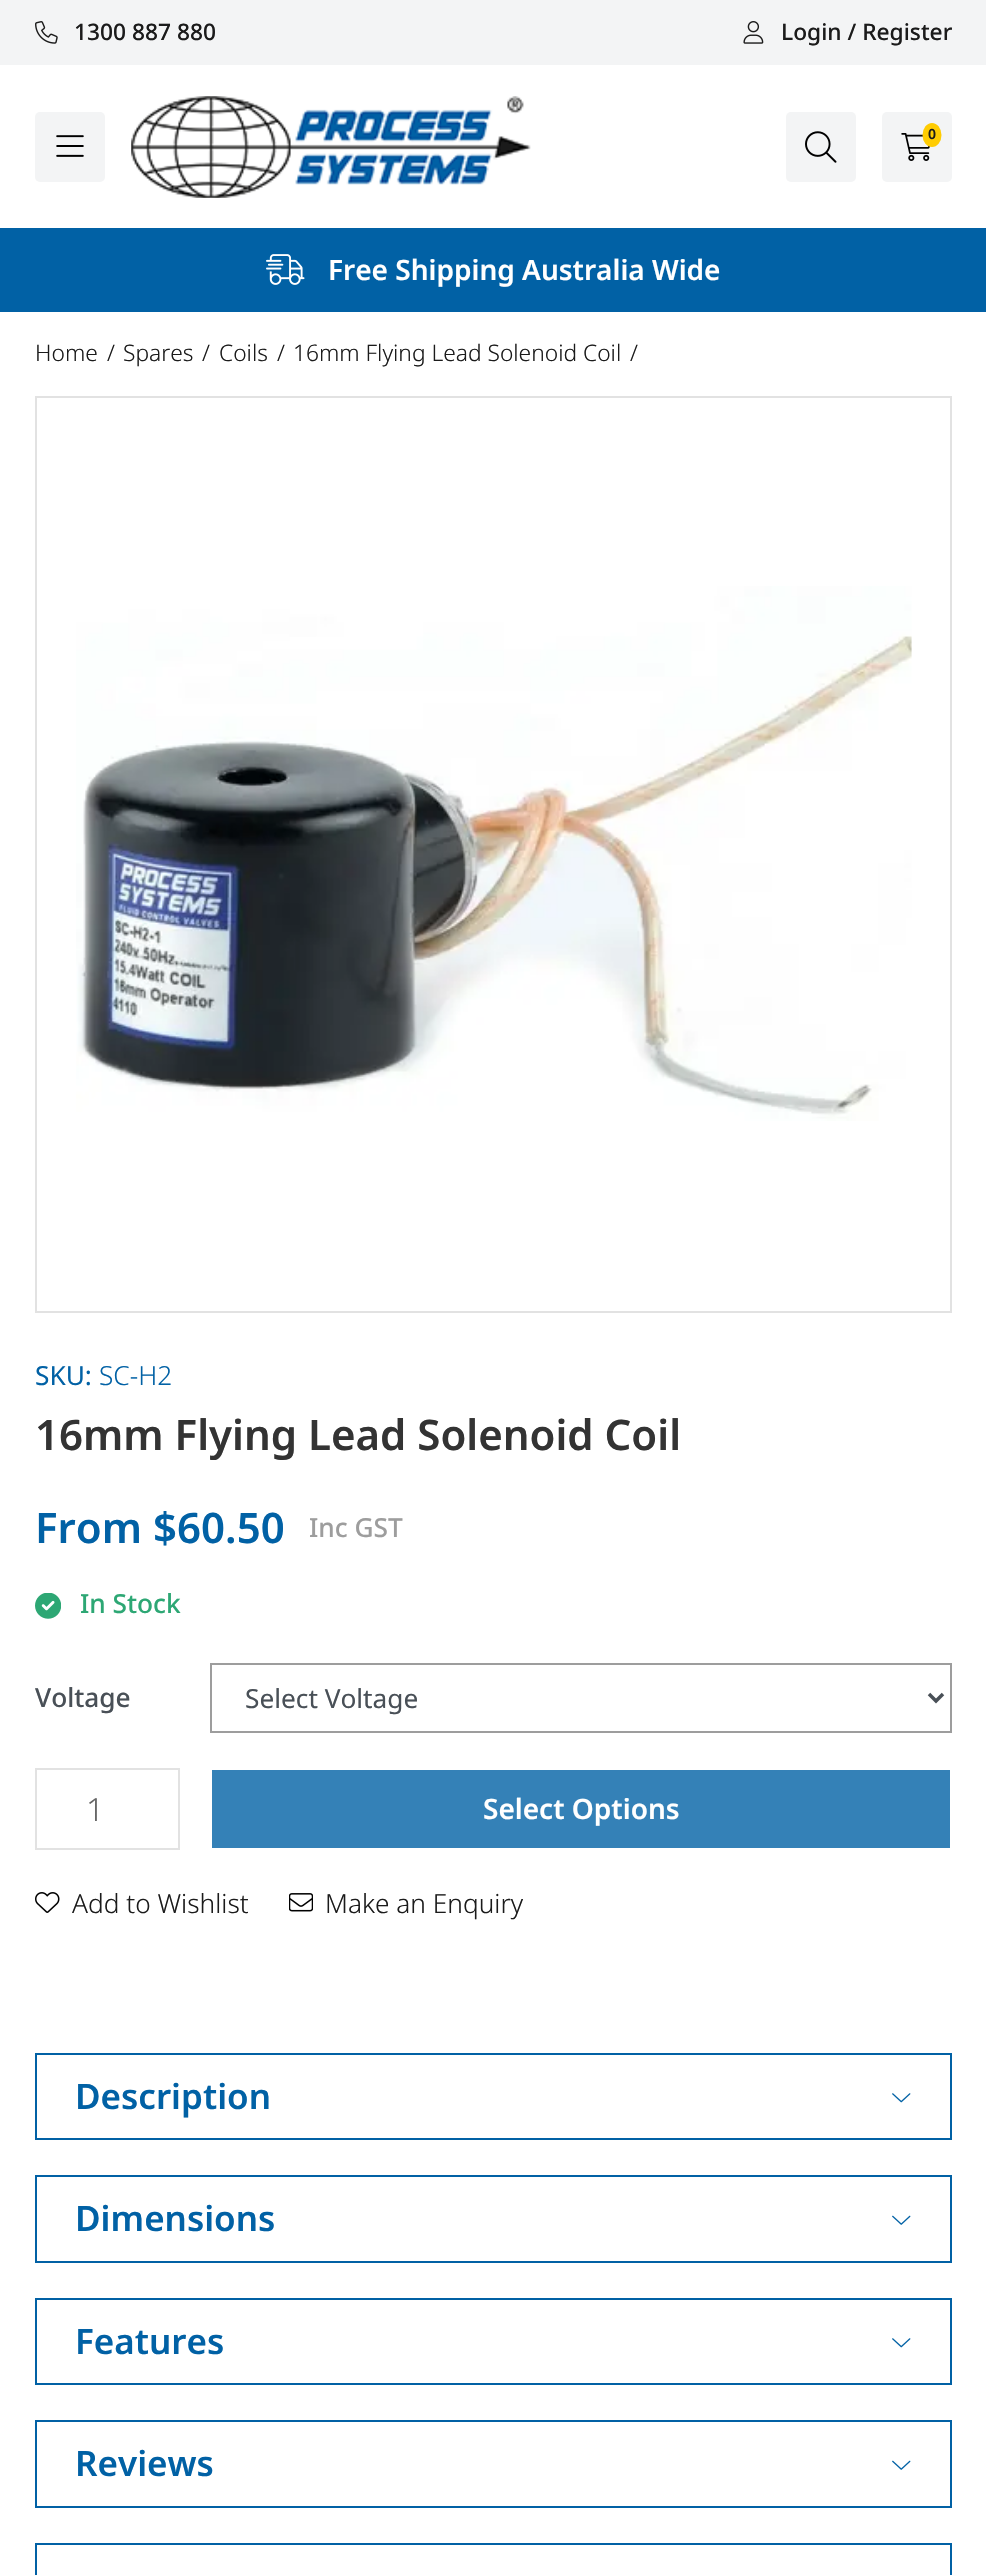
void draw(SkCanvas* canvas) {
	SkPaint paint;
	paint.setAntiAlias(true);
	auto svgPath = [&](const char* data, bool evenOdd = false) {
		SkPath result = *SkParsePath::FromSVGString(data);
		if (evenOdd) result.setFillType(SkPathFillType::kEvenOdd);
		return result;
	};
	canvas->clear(0xffffffff);
	paint.setColor(0xfff3f4f5);
	canvas->drawRect(SkRect::MakeXYWH(0, 0, 986, 65), paint);
	canvas->drawImageRect(SkImages::DeferredFromEncodedData(SkData::MakeFromFileName("img1.png")), SkRect::MakeXYWH(35, 21, 23, 23), SkSamplingOptions());
	SkFont f1(fontMgr->matchFamilyStyle("Noto Sans", SkFontStyle(500, SkFontStyle::kNormal_Width, SkFontStyle::kUpright_Slant)), 22.75);
	f1.setSubpixel(true);
	paint.setColor(0xff1b1b1b);
	canvas->drawString("1300 887 880", 74, 40, f1, paint);
	canvas->drawImageRect(SkImages::DeferredFromEncodedData(SkData::MakeFromFileName("img2.png")), SkRect::MakeXYWH(743, 21, 21, 23), SkSamplingOptions());
	canvas->drawString("Login / Register", 781, 40, f1, paint);
	paint.setColor(0xfff3f4f5);
	canvas->drawRoundRect(SkRect::MakeXYWH(35, 112, 70, 70), 5, 5, paint);
	canvas->drawImageRect(SkImages::DeferredFromEncodedData(SkData::MakeFromFileName("img3.png")), SkRect::MakeXYWH(56, 135, 28, 22), SkSamplingOptions());
	canvas->drawImageRect(SkImages::DeferredFromEncodedData(SkData::MakeFromFileName("img4.png")), SkRect::MakeXYWH(131, 96, 400, 102), SkSamplingOptions());
	canvas->drawRoundRect(SkRect::MakeXYWH(786, 112, 70, 70), 5, 5, paint);
	canvas->drawImageRect(SkImages::DeferredFromEncodedData(SkData::MakeFromFileName("img5.png")), SkRect::MakeXYWH(805, 131, 32, 32), SkSamplingOptions());
	canvas->drawRoundRect(SkRect::MakeXYWH(882, 112, 70, 70), 5, 5, paint);
	canvas->drawImageRect(SkImages::DeferredFromEncodedData(SkData::MakeFromFileName("img6.png")), SkRect::MakeXYWH(901, 133, 29, 28), SkSamplingOptions());
	paint.setColor(0xffffcc02);
	canvas->drawOval(SkRect::MakeXYWH(922.5, 123, 19, 24), paint);
	SkFont f2(fontMgr->matchFamilyStyle("Noto Sans", SkFontStyle(600, SkFontStyle::kNormal_Width, SkFontStyle::kUpright_Slant)), 14);
	f2.setSubpixel(true);
	paint.setColor(0xff1b1b1b);
	canvas->drawString("0", 928, 139, f2, paint);
	paint.setColor(0xff0161a5);
	canvas->drawRect(SkRect::MakeXYWH(0, 228, 986, 84), paint);
	canvas->drawImageRect(SkImages::DeferredFromEncodedData(SkData::MakeFromFileName("img7.png")), SkRect::MakeXYWH(266, 254, 39, 31), SkSamplingOptions());
	SkFont f3(fontMgr->matchFamilyStyle("Noto Sans", SkFontStyle(600, SkFontStyle::kNormal_Width, SkFontStyle::kUpright_Slant)), 28);
	f3.setSubpixel(true);
	paint.setColor(0xffffffff);
	canvas->drawString("Free Shipping Australia Wide", 328, 280, f3, paint);
	SkFont f4(fontMgr->matchFamilyStyle("Noto Sans", SkFontStyle(300, SkFontStyle::kNormal_Width, SkFontStyle::kUpright_Slant)), 22.75);
	f4.setSubpixel(true);
	paint.setColor(0xff1b1b1b);
	canvas->drawString("Home", 35, 361, f4, paint);
	canvas->drawString("/", 107, 361, f4, paint);
	canvas->drawString("Spares", 123, 361, f4, paint);
	canvas->drawString("/", 202, 361, f4, paint);
	canvas->drawString("Coils", 219, 361, f4, paint);
	canvas->drawString("/", 277, 361, f4, paint);
	canvas->drawString("16mm Flying Lead Solenoid Coil", 293, 361, f4, paint);
	canvas->drawString("/", 630, 361, f4, paint);
	paint.setStroke(true);
	paint.setStrokeWidth(2);
	paint.setColor(0xffe2e2e2);
	canvas->drawRect(SkRect::MakeXYWH(36, 397, 915, 915), paint);
	canvas->drawImageRect(SkImages::DeferredFromEncodedData(SkData::MakeFromFileName("img8.png")), SkRect::MakeXYWH(76, 586, 836, 535), SkSamplingOptions());
	SkFont f5(fontMgr->matchFamilyStyle("Noto Sans", SkFontStyle::Normal()), 26.25);
	f5.setSubpixel(true);
	paint.setStroke(false);
	paint.setColor(0xff0161a5);
	canvas->drawString("SKU:", 35, 1385, f5, paint);
	SkFont f6(fontMgr->matchFamilyStyle("Noto Sans", SkFontStyle(300, SkFontStyle::kNormal_Width, SkFontStyle::kUpright_Slant)), 26.25);
	f6.setSubpixel(true);
	canvas->drawString("SC-H2", 99, 1385, f6, paint);
	SkFont f7(fontMgr->matchFamilyStyle("Noto Sans", SkFontStyle(600, SkFontStyle::kNormal_Width, SkFontStyle::kUpright_Slant)), 42);
	f7.setSubpixel(true);
	paint.setColor(0xff333333);
	canvas->drawString("16mm Flying Lead Solenoid Coil", 35, 1450, f7, paint);
	paint.setColor(0xff0161a5);
	canvas->drawString("From $60.50", 35, 1543, f7, paint);
	SkFont f8(fontMgr->matchFamilyStyle("Noto Sans", SkFontStyle(500, SkFontStyle::kNormal_Width, SkFontStyle::kUpright_Slant)), 26.25);
	f8.setSubpixel(true);
	paint.setColor(0xff9d9d9d);
	canvas->drawString("Inc GST", 309, 1537, f8, paint);
	canvas->drawImageRect(SkImages::DeferredFromEncodedData(SkData::MakeFromFileName("img9.png")), SkRect::MakeXYWH(35, 1593, 26, 26), SkSamplingOptions());
	paint.setColor(0xff2da774);
	canvas->drawString("In Stock", 80, 1613, f8, paint);
	paint.setColor(0xff495057);
	canvas->drawString("Voltage", 35, 1707, f8, paint);
	paint.setStroke(true);
	paint.setColor(0xff9d9d9d);
	canvas->drawRect(SkRect::MakeXYWH(211, 1664, 740, 68), paint);
	paint.setStrokeWidth(3.5);
	paint.setColor(0xff495057);
	canvas->drawPath(svgPath("M929 1694L936 1701L943 1694"), paint);
	paint.setStroke(false);
	canvas->drawString("Select Voltage", 245, 1708, f5, paint);
	paint.setStroke(true);
	paint.setStrokeWidth(2);
	paint.setColor(0xffe2e2e2);
	canvas->drawRect(SkRect::MakeXYWH(36, 1769, 143, 80), paint);
	SkFont f9(fontMgr->matchFamilyStyle("Noto Sans", SkFontStyle(300, SkFontStyle::kNormal_Width, SkFontStyle::kUpright_Slant)), 32);
	f9.setSubpixel(true);
	paint.setStroke(false);
	paint.setColor(0xff656565);
	canvas->drawString("1", 86, 1821, f9, paint);
	paint.setColor(0xff3481b7);
	canvas->drawRect(SkRect::MakeXYWH(212, 1770, 738, 78), paint);
	paint.setColor(0xffffffff);
	canvas->drawString("Select Options", 483, 1819, f3, paint);
	canvas->drawImageRect(SkImages::DeferredFromEncodedData(SkData::MakeFromFileName("img10.png")), SkRect::MakeXYWH(35, 1892, 25, 21), SkSamplingOptions());
	paint.setColor(0xff1b1b1b);
	canvas->drawString("Add to Wishlist", 72, 1913, f6, paint);
	canvas->drawImageRect(SkImages::DeferredFromEncodedData(SkData::MakeFromFileName("img11.png")), SkRect::MakeXYWH(289, 1893, 24, 19), SkSamplingOptions());
	canvas->drawString("Make an Enquiry", 325, 1913, f6, paint);
	paint.setStroke(true);
	paint.setColor(0xff0161a5);
	canvas->drawRect(SkRect::MakeXYWH(36, 2054, 915, 85), paint);
	SkFont f10(fontMgr->matchFamilyStyle("Noto Sans", SkFontStyle(600, SkFontStyle::kNormal_Width, SkFontStyle::kUpright_Slant)), 35);
	f10.setSubpixel(true);
	paint.setStroke(false);
	canvas->drawString("Description", 75, 2109, f10, paint);
	canvas->drawImageRect(SkImages::DeferredFromEncodedData(SkData::MakeFromFileName("img12.png")), SkRect::MakeXYWH(892, 2093, 19, 10), SkSamplingOptions());
	paint.setStroke(true);
	canvas->drawRect(SkRect::MakeXYWH(36, 2176, 915, 86), paint);
	paint.setStroke(false);
	canvas->drawString("Dimensions", 75, 2231, f10, paint);
	canvas->drawImageRect(SkImages::DeferredFromEncodedData(SkData::MakeFromFileName("img13.png")), SkRect::MakeXYWH(892, 2215, 19, 10), SkSamplingOptions());
	paint.setStroke(true);
	canvas->drawRect(SkRect::MakeXYWH(36, 2299, 915, 85), paint);
	paint.setStroke(false);
	canvas->drawString("Features", 75, 2354, f10, paint);
	canvas->drawImageRect(SkImages::DeferredFromEncodedData(SkData::MakeFromFileName("img12.png")), SkRect::MakeXYWH(892, 2338, 19, 10), SkSamplingOptions());
	paint.setStroke(true);
	canvas->drawRect(SkRect::MakeXYWH(36, 2421, 915, 86), paint);
	paint.setStroke(false);
	canvas->drawString("Reviews", 75, 2476, f10, paint);
	canvas->drawImageRect(SkImages::DeferredFromEncodedData(SkData::MakeFromFileName("img13.png")), SkRect::MakeXYWH(892, 2460, 19, 10), SkSamplingOptions());
	paint.setStroke(true);
	canvas->drawRect(SkRect::MakeXYWH(36, 2544, 915, 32), paint);
}
